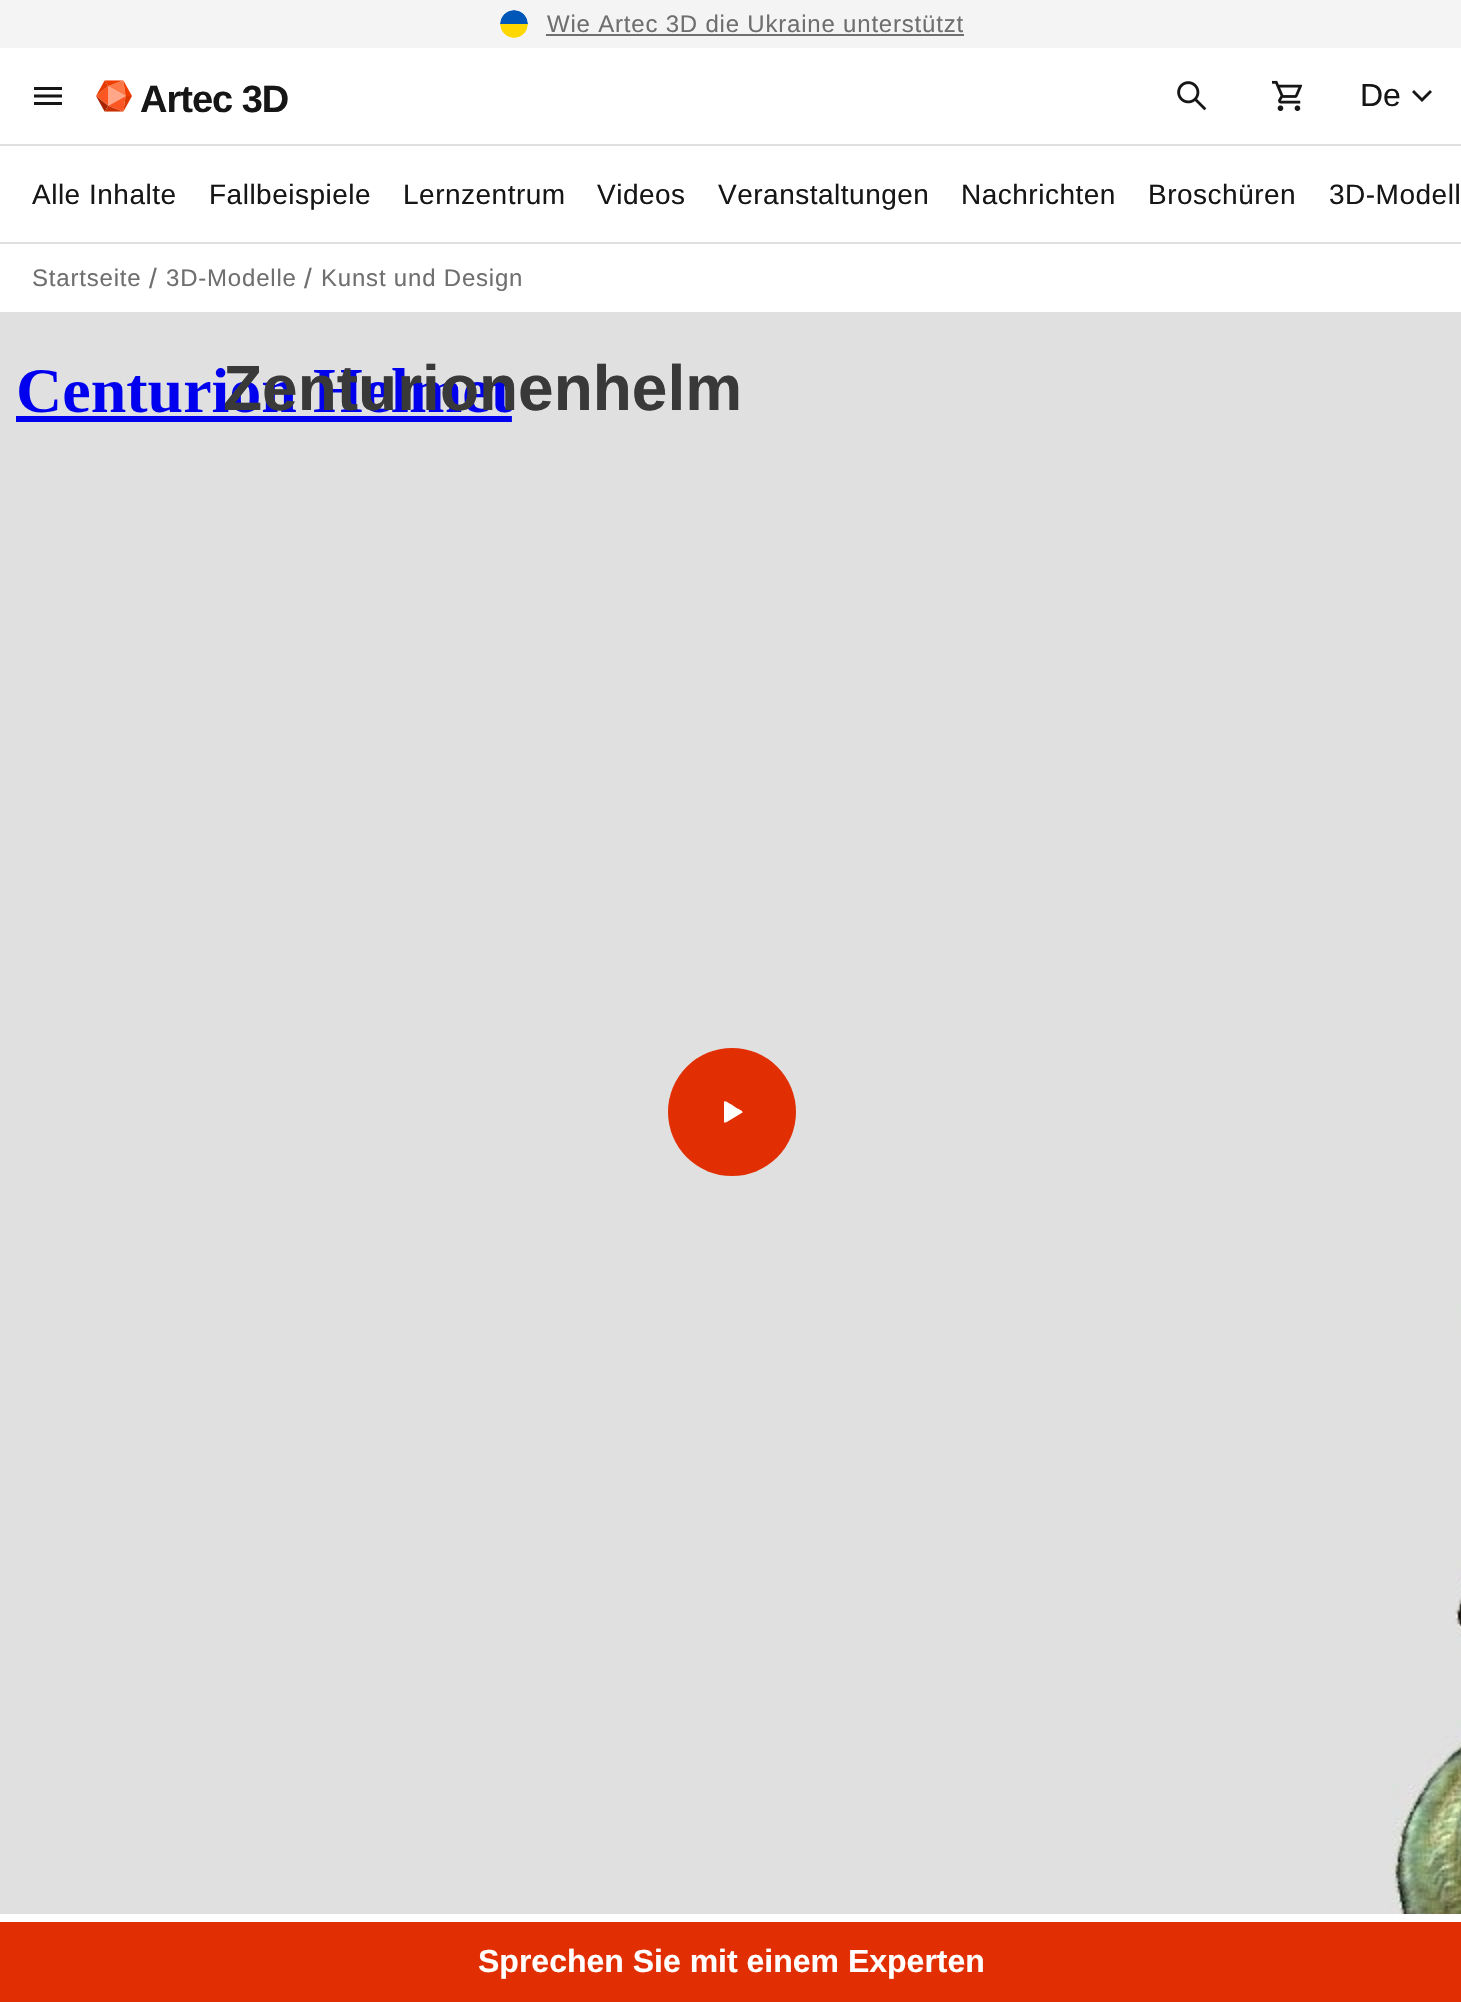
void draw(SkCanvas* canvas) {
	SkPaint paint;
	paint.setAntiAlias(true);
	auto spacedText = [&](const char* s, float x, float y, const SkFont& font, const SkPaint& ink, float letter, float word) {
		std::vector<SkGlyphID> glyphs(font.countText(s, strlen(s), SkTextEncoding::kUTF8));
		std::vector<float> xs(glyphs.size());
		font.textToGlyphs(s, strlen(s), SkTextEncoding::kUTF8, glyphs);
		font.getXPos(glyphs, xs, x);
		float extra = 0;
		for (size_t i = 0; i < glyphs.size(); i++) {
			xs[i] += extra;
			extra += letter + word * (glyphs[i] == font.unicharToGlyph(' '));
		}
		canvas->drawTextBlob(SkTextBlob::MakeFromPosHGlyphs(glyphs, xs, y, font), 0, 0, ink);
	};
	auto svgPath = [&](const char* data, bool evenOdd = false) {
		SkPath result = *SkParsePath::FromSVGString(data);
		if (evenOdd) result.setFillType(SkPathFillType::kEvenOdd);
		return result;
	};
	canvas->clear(0xffffffff);
	paint.setColor(0xfff4f4f4);
	canvas->drawRect(SkRect::MakeXYWH(0, 0, 1461, 48), paint);
	canvas->drawImageRect(SkImages::DeferredFromEncodedData(SkData::MakeFromFileName("img1.png")), SkRect::MakeXYWH(500, 10, 28, 28), SkSamplingOptions());
	SkFont f1(fontMgr->matchFamilyStyle("Liberation Sans", SkFontStyle::Normal()), 24);
	f1.setSubpixel(true);
	paint.setColor(0xff6f6f6f);
	spacedText("Wie Artec 3D die Ukraine unterstützt", 547, 32, f1, paint, 0.8, 0);
	canvas->drawRect(SkRect::MakeXYWH(546, 34, 418, 2), paint);
	paint.setColor(0xffe0e0e0);
	canvas->drawRect(SkRect::MakeXYWH(0, 144, 1461, 2), paint);
	canvas->drawImageRect(SkImages::DeferredFromEncodedData(SkData::MakeFromFileName("img2.png")), SkRect::MakeXYWH(34, 87, 28, 18), SkSamplingOptions());
	canvas->drawImageRect(SkImages::DeferredFromEncodedData(SkData::MakeFromFileName("img3.png")), SkRect::MakeXYWH(96, 80, 36, 32), SkSamplingOptions());
	SkFont f2(fontMgr->matchFamilyStyle("Liberation Sans", SkFontStyle::Bold()), 38);
	f2.setSubpixel(true);
	paint.setColor(0xff161616);
	spacedText("Artec 3D", 140, 112, f2, paint, -1, 0);
	canvas->drawImageRect(SkImages::DeferredFromEncodedData(SkData::MakeFromFileName("img4.png")), SkRect::MakeXYWH(1177, 81, 30, 30), SkSamplingOptions());
	canvas->drawImageRect(SkImages::DeferredFromEncodedData(SkData::MakeFromFileName("img5.png")), SkRect::MakeXYWH(1272, 80, 31, 31), SkSamplingOptions());
	SkFont f3(fontMgr->matchFamilyStyle("Liberation Sans", SkFontStyle::Normal()), 32);
	f3.setSubpixel(true);
	canvas->drawString("De", 1360, 106, f3, paint);
	canvas->drawPath(svgPath("M1422 102L1412 92L1414 90L1422 98L1430 90L1432 92Z"), paint);
	paint.setColor(0xffe0e0e0);
	canvas->drawRect(SkRect::MakeXYWH(0, 242, 1461, 2), paint);
	SkFont f4(fontMgr->matchFamilyStyle("Liberation Sans", SkFontStyle::Normal()), 28);
	f4.setSubpixel(true);
	paint.setColor(0xff161616);
	spacedText("Alle Inhalte", 32, 204, f4, paint, 0.5, 0);
	spacedText("Fallbeispiele", 209, 204, f4, paint, 0.5, 0);
	spacedText("Lernzentrum", 403, 204, f4, paint, 0.5, 0);
	spacedText("Videos", 597, 204, f4, paint, 0.5, 0);
	spacedText("Veranstaltungen", 718, 204, f4, paint, 0.5, 0);
	spacedText("Nachrichten", 961, 204, f4, paint, 0.5, 0);
	spacedText("Broschüren", 1148, 204, f4, paint, 0.5, 0);
	spacedText("3D-Modell", 1329, 204, f4, paint, 0.5, 0);
	paint.setColor(0xff6f6f6f);
	spacedText("Startseite", 32, 286, f1, paint, 0.8, 0);
	spacedText("/", 149, 288, f4, paint, 0.5, 0);
	spacedText("3D-Modelle", 166, 286, f1, paint, 0.8, 0);
	spacedText("/", 304, 288, f4, paint, 0.5, 0);
	spacedText("Kunst und Design", 321, 286, f1, paint, 0.8, 0);
	paint.setColor(0xffe0e0e0);
	canvas->drawRect(SkRect::MakeXYWH(0, 312, 1461, 1602), paint);
	canvas->drawImageRect(SkImages::DeferredFromEncodedData(SkData::MakeFromFileName("img6.png")), SkRect::MakeXYWH(16, 368, 1445, 1546), SkSamplingOptions());
	paint.setColor(0xffe22e03);
	canvas->drawCircle(732, 1112, 64, paint);
	paint.setColor(0xffffffff);
	canvas->drawPath(svgPath("M724 1102.5C724 1099.5 727.5 1102.5 731.5 1104.5L736.5 1108C737.5 1108.5 742.5 1110.5 742.5 1112V1112.5L728.5 1121C724 1123.5 724 1123.5 724 1118.5Z", true), paint);
	SkFont f5(fontMgr->matchFamilyStyle("Liberation Sans", SkFontStyle::Bold()), 64);
	f5.setSubpixel(true);
	paint.setColor(0xff393939);
	canvas->drawString("Zenturionenhelm", 223, 410, f5, paint);
	paint.setColor(0xffe22e03);
	canvas->drawRect(SkRect::MakeXYWH(0, 1922, 1461, 80), paint);
	SkFont f6(fontMgr->matchFamilyStyle("Liberation Sans", SkFontStyle::Bold()), 32);
	f6.setSubpixel(true);
	paint.setColor(0xffffffff);
	canvas->drawString("Sprechen Sie mit einem Experten", 478, 1972, f6, paint);
}
